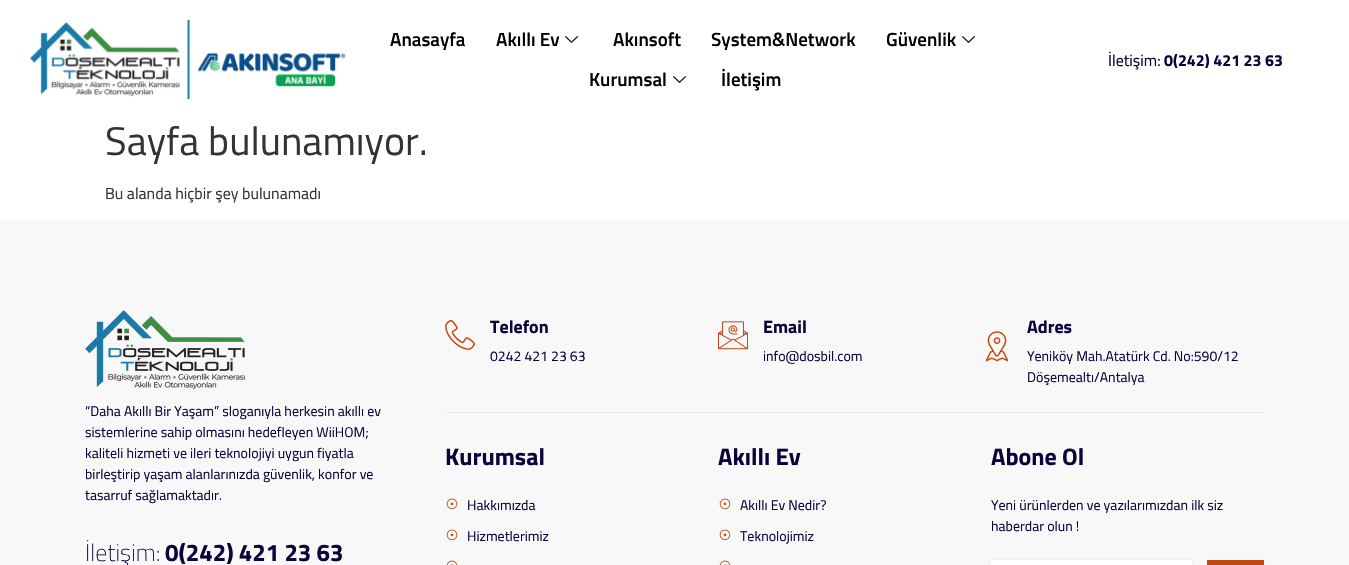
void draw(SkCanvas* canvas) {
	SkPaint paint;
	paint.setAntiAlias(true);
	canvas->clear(0xffffffff);
	canvas->drawImageRect(SkImages::DeferredFromEncodedData(SkData::MakeFromFileName("img1.png")), SkRect::MakeXYWH(30, 20, 316, 79), SkSamplingOptions());
	SkFont f1(fontMgr->matchFamilyStyle("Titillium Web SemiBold", SkFontStyle(600, SkFontStyle::kNormal_Width, SkFontStyle::kUpright_Slant)), 19);
	f1.setSubpixel(true);
	paint.setColor(0xff000000);
	canvas->drawString("Anasayfa", 390, 46, f1, paint);
	canvas->drawString("Akıllı Ev", 496, 46, f1, paint);
	canvas->drawImageRect(SkImages::DeferredFromEncodedData(SkData::MakeFromFileName("img2.png")), SkRect::MakeXYWH(565, 36, 13, 7), SkSamplingOptions());
	canvas->drawString("Akınsoft", 613, 46, f1, paint);
	canvas->drawString("System&Network", 711, 46, f1, paint);
	canvas->drawString("Güvenlik", 886, 46, f1, paint);
	canvas->drawImageRect(SkImages::DeferredFromEncodedData(SkData::MakeFromFileName("img2.png")), SkRect::MakeXYWH(962, 36, 13, 7), SkSamplingOptions());
	canvas->drawString("Kurumsal", 589, 86, f1, paint);
	canvas->drawImageRect(SkImages::DeferredFromEncodedData(SkData::MakeFromFileName("img2.png")), SkRect::MakeXYWH(673, 76, 13, 7), SkSamplingOptions());
	canvas->drawString("İletişim", 721, 86, f1, paint);
	SkFont f2(fontMgr->matchFamilyStyle("Titillium Web", SkFontStyle::Normal()), 16);
	f2.setSubpixel(true);
	paint.setColor(0xff07032a);
	canvas->drawString("İletişim:", 1108, 66, f2, paint);
	SkFont f3(fontMgr->matchFamilyStyle("Titillium Web", SkFontStyle::Bold()), 16);
	f3.setSubpixel(true);
	paint.setColor(0xff0a043c);
	canvas->drawString("0(242) 421 23 63", 1164, 66, f3, paint);
	SkFont f4(fontMgr->matchFamilyStyle("Titillium Web", SkFontStyle::Normal()), 40);
	f4.setSubpixel(true);
	paint.setColor(0xff333333);
	canvas->drawString("Sayfa bulunamıyor.", 105, 155, f4, paint);
	canvas->drawString("Bu alanda hiçbir şey bulunamadı", 105, 199, f2, paint);
	paint.setColor(0xfff8f8f8);
	canvas->drawRect(SkRect::MakeXYWH(0, 220, 1349, 345), paint);
	canvas->drawImageRect(SkImages::DeferredFromEncodedData(SkData::MakeFromFileName("img3.png")), SkRect::MakeXYWH(85, 310, 160, 79), SkSamplingOptions());
	SkFont f5(fontMgr->matchFamilyStyle("Titillium Web", SkFontStyle::Normal()), 14);
	f5.setSubpixel(true);
	paint.setColor(0xff0a043c);
	canvas->drawString("“Daha Akıllı Bir Yaşam” sloganıyla herkesin akıllı ev", 85, 416, f5, paint);
	canvas->drawString("sistemlerine sahip olmasını hedefleyen WiiHOM;", 85, 437, f5, paint);
	canvas->drawString("kaliteli hizmeti ve ileri teknolojiyi uygun fiyatla", 85, 458, f5, paint);
	canvas->drawString("birleştirip yaşam alanlarınızda güvenlik, konfor ve", 85, 479, f5, paint);
	canvas->drawString("tasarruf sağlamaktadır.", 85, 500, f5, paint);
	SkFont f6(fontMgr->matchFamilyStyle("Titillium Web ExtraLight", SkFontStyle(200, SkFontStyle::kNormal_Width, SkFontStyle::kUpright_Slant)), 24);
	f6.setSubpixel(true);
	canvas->drawString("İletişim:", 85, 561, f6, paint);
	SkFont f7(fontMgr->matchFamilyStyle("Titillium Web", SkFontStyle::Bold()), 24);
	f7.setSubpixel(true);
	canvas->drawString("0(242) 421 23 63", 165, 561, f7, paint);
	paint.setColor(0xffeaeaea);
	canvas->drawRect(SkRect::MakeXYWH(445, 412, 820, 1), paint);
	canvas->drawImageRect(SkImages::DeferredFromEncodedData(SkData::MakeFromFileName("img4.png")), SkRect::MakeXYWH(445, 319, 30, 31), SkSamplingOptions());
	SkFont f8(fontMgr->matchFamilyStyle("Titillium Web", SkFontStyle::Bold()), 18);
	f8.setSubpixel(true);
	paint.setColor(0xff0a043c);
	canvas->drawString("Telefon", 490, 333, f8, paint);
	canvas->drawString("0242 421 23 63", 490, 361, f5, paint);
	canvas->drawImageRect(SkImages::DeferredFromEncodedData(SkData::MakeFromFileName("img5.png")), SkRect::MakeXYWH(718, 321, 30, 29), SkSamplingOptions());
	canvas->drawString("Email", 763, 333, f8, paint);
	canvas->drawString("info@dosbil.com", 763, 361, f5, paint);
	canvas->drawImageRect(SkImages::DeferredFromEncodedData(SkData::MakeFromFileName("img6.png")), SkRect::MakeXYWH(985, 331, 24, 31), SkSamplingOptions());
	canvas->drawString("Adres", 1027, 333, f8, paint);
	canvas->drawString("Yeniköy Mah.Atatürk Cd. No:590/12", 1027, 361, f5, paint);
	canvas->drawString("Döşemealtı/Antalya", 1027, 382, f5, paint);
	canvas->drawString("Kurumsal", 445, 465, f7, paint);
	canvas->drawImageRect(SkImages::DeferredFromEncodedData(SkData::MakeFromFileName("img7.png")), SkRect::MakeXYWH(446, 498, 12, 12), SkSamplingOptions());
	canvas->drawString("Hakkımızda", 467, 510, f5, paint);
	canvas->drawImageRect(SkImages::DeferredFromEncodedData(SkData::MakeFromFileName("img7.png")), SkRect::MakeXYWH(446, 529, 12, 12), SkSamplingOptions());
	canvas->drawString("Hizmetlerimiz", 467, 541, f5, paint);
	canvas->drawImageRect(SkImages::DeferredFromEncodedData(SkData::MakeFromFileName("img8.png")), SkRect::MakeXYWH(446, 560, 12, 5), SkSamplingOptions());
	canvas->drawString("Akıllı Ev", 718, 465, f7, paint);
	canvas->drawImageRect(SkImages::DeferredFromEncodedData(SkData::MakeFromFileName("img7.png")), SkRect::MakeXYWH(719, 498, 12, 12), SkSamplingOptions());
	canvas->drawString("Akıllı Ev Nedir?", 740, 510, f5, paint);
	canvas->drawImageRect(SkImages::DeferredFromEncodedData(SkData::MakeFromFileName("img7.png")), SkRect::MakeXYWH(719, 529, 12, 12), SkSamplingOptions());
	canvas->drawString("Teknolojimiz", 740, 541, f5, paint);
	canvas->drawImageRect(SkImages::DeferredFromEncodedData(SkData::MakeFromFileName("img8.png")), SkRect::MakeXYWH(719, 560, 12, 5), SkSamplingOptions());
	canvas->drawString("Abone Ol", 991, 465, f7, paint);
	canvas->drawString("Yeni ürünlerden ve yazılarımızdan ilk siz", 991, 510, f5, paint);
	canvas->drawString("haberdar olun !", 991, 531, f5, paint);
	paint.setColor(0x1a414141);
	paint.setMaskFilter(SkMaskFilter::MakeBlur(kNormal_SkBlurStyle, 2));
	canvas->drawRect(SkRect::MakeXYWH(991, 560, 201, 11), paint);
	paint.setMaskFilter(nullptr);
	paint.setColor(0xffffffff);
	canvas->drawRect(SkRect::MakeXYWH(991, 560, 201, 5), paint);
	paint.setColor(0xffc24914);
	canvas->drawRect(SkRect::MakeXYWH(1207, 560, 57, 5), paint);
}
